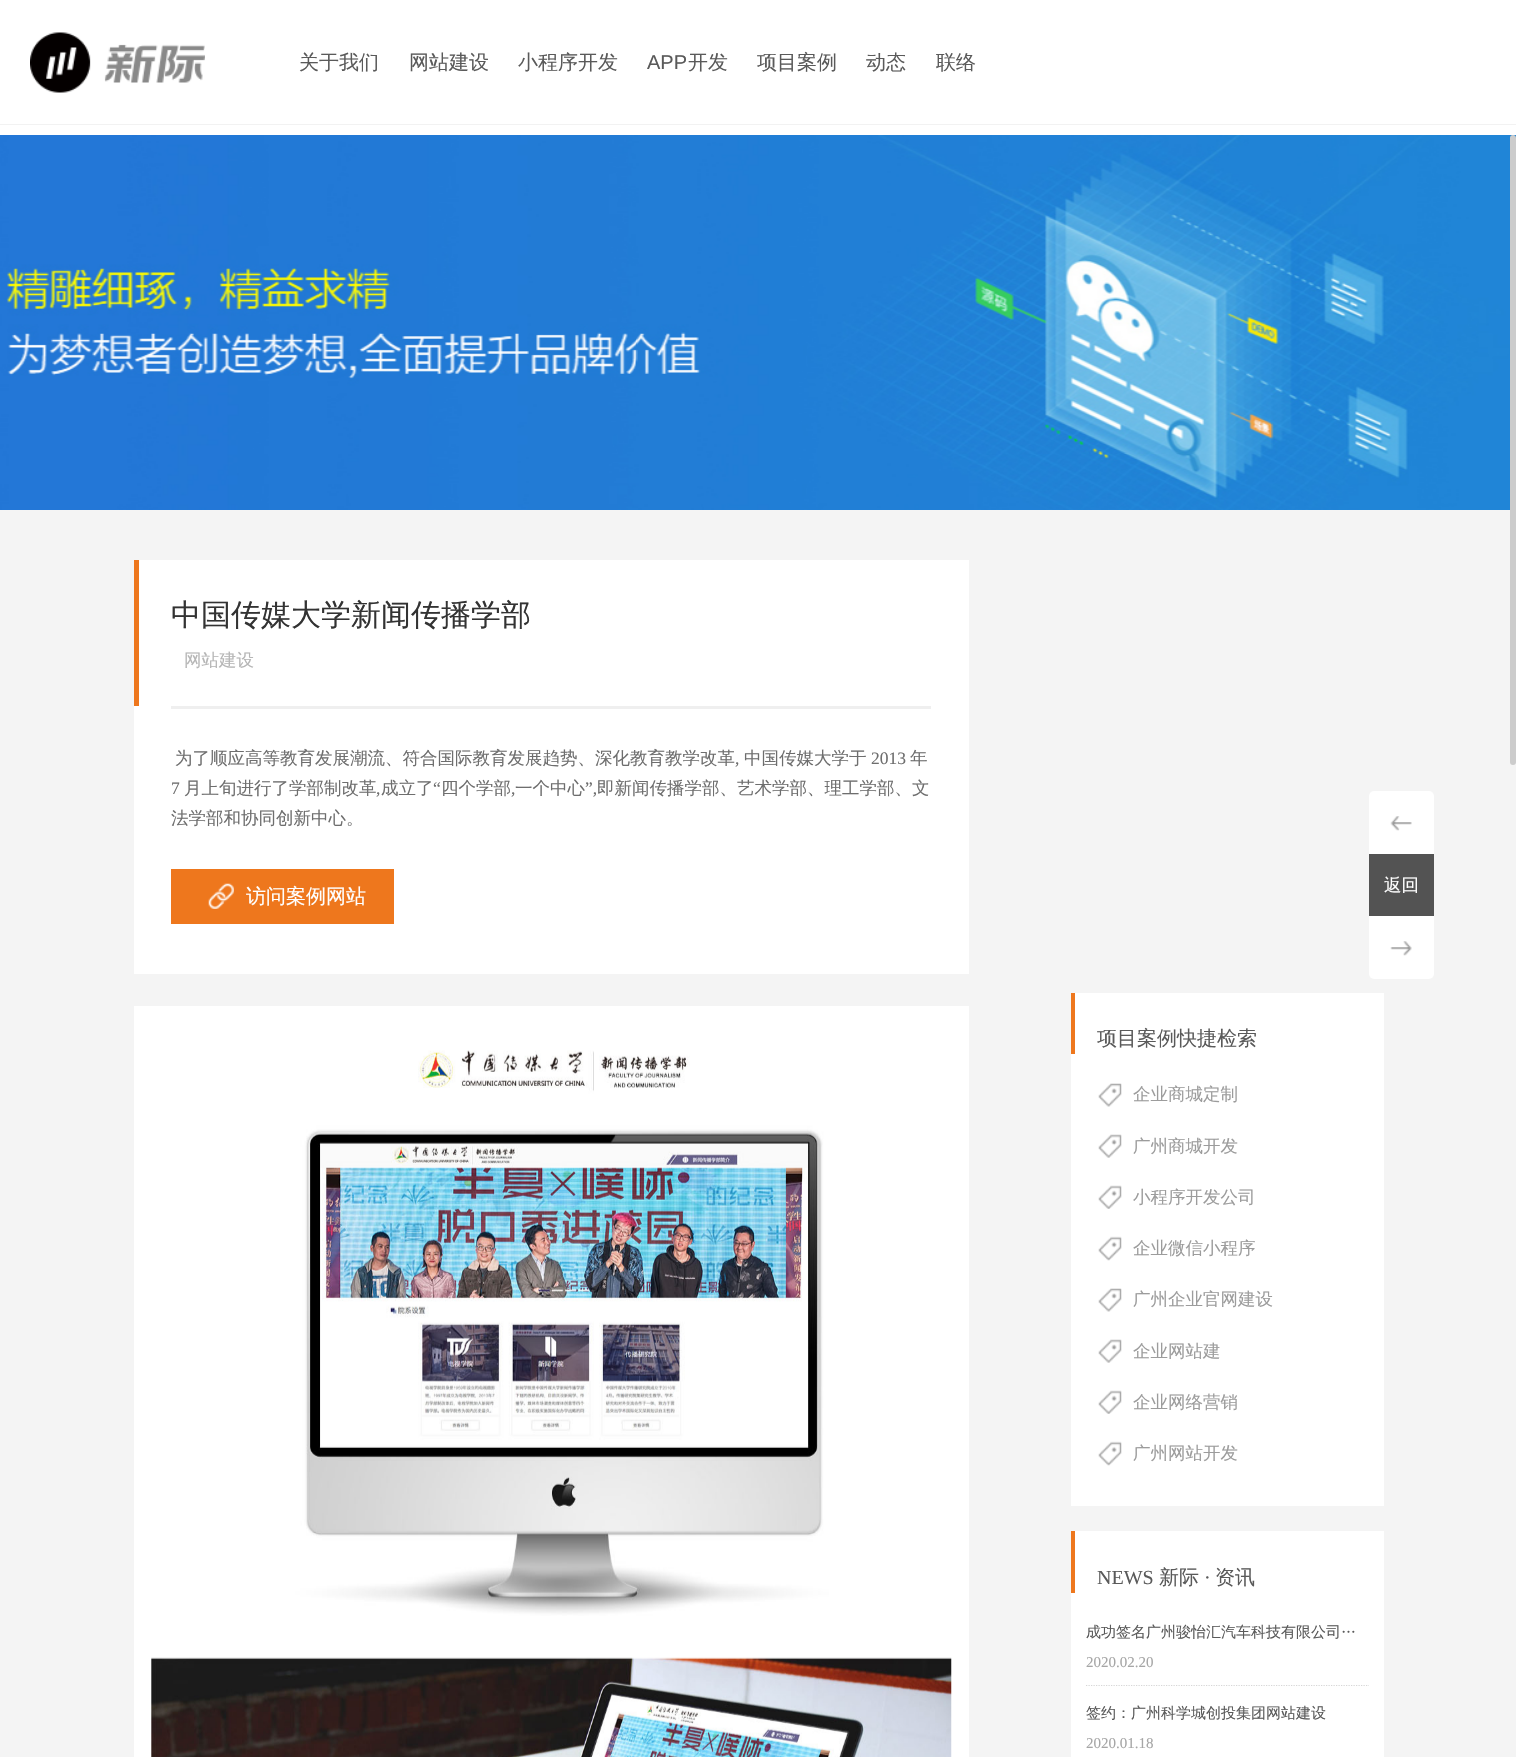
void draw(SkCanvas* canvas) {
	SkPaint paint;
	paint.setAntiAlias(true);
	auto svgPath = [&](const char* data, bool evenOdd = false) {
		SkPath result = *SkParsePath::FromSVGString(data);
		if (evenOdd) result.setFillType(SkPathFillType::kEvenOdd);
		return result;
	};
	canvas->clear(0xffffffff);
	paint.setColor(0xfff2f2f2);
	canvas->drawRect(SkRect::MakeXYWH(0, 124, 1516, 1), paint);
	canvas->drawImageRect(SkImages::DeferredFromEncodedData(SkData::MakeFromFileName("img1.png")), SkRect::MakeXYWH(30, 32, 175, 61), SkSamplingOptions());
	SkFont f1(fontMgr->matchFamilyStyle("WenQuanYi Zen Hei", SkFontStyle(500, SkFontStyle::kNormal_Width, SkFontStyle::kUpright_Slant)), 20);
	f1.setSubpixel(true);
	paint.setColor(0xff5a5a5a);
	canvas->drawString("关于我们", 299, 69, f1, paint);
	canvas->drawString("网站建设", 409, 69, f1, paint);
	canvas->drawString("小程序开发", 518, 69, f1, paint);
	SkFont f2(fontMgr->matchFamilyStyle("Liberation Sans", SkFontStyle::Normal()), 20);
	f2.setSubpixel(true);
	canvas->drawString("APP", 647, 69, f2, paint);
	canvas->drawString("开发", 688, 69, f1, paint);
	canvas->drawString("项目案例", 757, 69, f1, paint);
	canvas->drawString("动态", 866, 69, f1, paint);
	canvas->drawString("联络", 936, 69, f1, paint);
	canvas->drawImageRect(SkImages::DeferredFromEncodedData(SkData::MakeFromFileName("img2.png")), SkRect::MakeXYWH(0, 135, 1516, 375), SkSamplingOptions());
	paint.setColor(0xfff4f4f4);
	canvas->drawRect(SkRect::MakeXYWH(0, 510, 1516, 1247), paint);
	paint.setColor(0xffcccccc);
	canvas->drawRoundRect(SkRect::MakeXYWH(1510, 135, 6, 630), 3, 3, paint);
	paint.setColor(0xffffffff);
	canvas->drawRect(SkRect::MakeXYWH(134, 560, 835, 414), paint);
	paint.setColor(0xffefefef);
	canvas->drawRect(SkRect::MakeXYWH(171, 706, 760, 3), paint);
	paint.setColor(0xffee771d);
	canvas->drawRect(SkRect::MakeXYWH(134, 560, 5, 146), paint);
	SkFont f3(fontMgr->matchFamilyStyle("WenQuanYi Zen Hei", SkFontStyle(500, SkFontStyle::kNormal_Width, SkFontStyle::kUpright_Slant)), 30);
	f3.setSubpixel(true);
	paint.setColor(0xff333333);
	canvas->drawString("中国传媒大学新闻传播学部", 171, 625, f3, paint);
	SkFont f4(fontMgr->matchFamilyStyle("WenQuanYi Zen Hei", SkFontStyle(500, SkFontStyle::kNormal_Width, SkFontStyle::kUpright_Slant)), 17.5);
	f4.setSubpixel(true);
	paint.setColor(0xffb6b6b6);
	canvas->drawString("网站建设", 184, 666, f4, paint);
	paint.setColor(0xff6e6e6e);
	canvas->drawString("为了顺应高等教育发展潮流、符合国际教育发展趋势、深化教育教学改革", 175, 764, f4, paint);
	SkFont f5(fontMgr->matchFamilyStyle("Liberation Serif", SkFontStyle::Normal()), 17.5);
	f5.setSubpixel(true);
	canvas->drawString(",", 735, 764, f5, paint);
	canvas->drawString("中国传媒大学于", 744, 764, f4, paint);
	canvas->drawString("2013", 871, 764, f5, paint);
	canvas->drawString("年", 910, 764, f4, paint);
	canvas->drawString("7", 171, 794, f5, paint);
	canvas->drawString("月上旬进行了学部制改革", 184, 794, f4, paint);
	canvas->drawString(",", 376, 794, f5, paint);
	canvas->drawString("成立了", 381, 794, f4, paint);
	canvas->drawString("“", 433, 794, f5, paint);
	canvas->drawString("四个学部", 441, 794, f4, paint);
	canvas->drawString(",", 511, 794, f5, paint);
	canvas->drawString("一个中心", 515, 794, f4, paint);
	canvas->drawString("”,", 585, 794, f5, paint);
	canvas->drawString("即新闻传播学部、艺术学部、理工学部、文", 597, 794, f4, paint);
	canvas->drawString("法学部和协同创新中心。", 171, 824, f4, paint);
	paint.setColor(0xffee771d);
	canvas->drawRect(SkRect::MakeXYWH(171, 869, 223, 55), paint);
	canvas->drawImageRect(SkImages::DeferredFromEncodedData(SkData::MakeFromFileName("img3.png")), SkRect::MakeXYWH(208, 883, 26, 26), SkSamplingOptions());
	paint.setColor(0xffffffff);
	canvas->drawString("访问案例网站", 246, 903, f1, paint);
	canvas->drawRect(SkRect::MakeXYWH(134, 1006, 835, 751), paint);
	canvas->drawImageRect(SkImages::DeferredFromEncodedData(SkData::MakeFromFileName("img4.png")), SkRect::MakeXYWH(151, 1050, 801, 707), SkSamplingOptions());
	canvas->drawRect(SkRect::MakeXYWH(1071, 993, 313, 513), paint);
	paint.setColor(0xffee771d);
	canvas->drawRect(SkRect::MakeXYWH(1071, 993, 4, 61), paint);
	paint.setColor(0xff5a5a5a);
	canvas->drawString("项目案例快捷检索", 1097, 1045, f1, paint);
	canvas->drawImageRect(SkImages::DeferredFromEncodedData(SkData::MakeFromFileName("img5.png")), SkRect::MakeXYWH(1098, 1083, 24, 24), SkSamplingOptions());
	paint.setColor(0xff9c9c9c);
	canvas->drawString("企业商城定制", 1133, 1100, f4, paint);
	canvas->drawImageRect(SkImages::DeferredFromEncodedData(SkData::MakeFromFileName("img6.png")), SkRect::MakeXYWH(1098, 1134, 24, 24), SkSamplingOptions());
	canvas->drawString("广州商城开发", 1133, 1152, f4, paint);
	canvas->drawImageRect(SkImages::DeferredFromEncodedData(SkData::MakeFromFileName("img7.png")), SkRect::MakeXYWH(1098, 1185, 24, 24), SkSamplingOptions());
	canvas->drawString("小程序开发公司", 1133, 1203, f4, paint);
	canvas->drawImageRect(SkImages::DeferredFromEncodedData(SkData::MakeFromFileName("img8.png")), SkRect::MakeXYWH(1098, 1236, 24, 25), SkSamplingOptions());
	canvas->drawString("企业微信小程序", 1133, 1254, f4, paint);
	canvas->drawImageRect(SkImages::DeferredFromEncodedData(SkData::MakeFromFileName("img5.png")), SkRect::MakeXYWH(1098, 1288, 24, 24), SkSamplingOptions());
	canvas->drawString("广州企业官网建设", 1133, 1305, f4, paint);
	canvas->drawImageRect(SkImages::DeferredFromEncodedData(SkData::MakeFromFileName("img6.png")), SkRect::MakeXYWH(1098, 1339, 24, 24), SkSamplingOptions());
	canvas->drawString("企业网站建", 1133, 1357, f4, paint);
	canvas->drawImageRect(SkImages::DeferredFromEncodedData(SkData::MakeFromFileName("img7.png")), SkRect::MakeXYWH(1098, 1390, 24, 24), SkSamplingOptions());
	canvas->drawString("企业网络营销", 1133, 1408, f4, paint);
	canvas->drawImageRect(SkImages::DeferredFromEncodedData(SkData::MakeFromFileName("img8.png")), SkRect::MakeXYWH(1098, 1441, 24, 25), SkSamplingOptions());
	canvas->drawString("广州网站开发", 1133, 1459, f4, paint);
	paint.setColor(0xffffffff);
	canvas->drawRect(SkRect::MakeXYWH(1071, 1531, 313, 226), paint);
	paint.setColor(0xffee771d);
	canvas->drawRect(SkRect::MakeXYWH(1071, 1531, 4, 62), paint);
	SkFont f6(fontMgr->matchFamilyStyle("Liberation Serif", SkFontStyle::Normal()), 20);
	f6.setSubpixel(true);
	paint.setColor(0xff5a5a5a);
	canvas->drawString("NEWS", 1097, 1584, f6, paint);
	canvas->drawString("新际", 1159, 1584, f1, paint);
	canvas->drawString("·", 1204, 1584, f6, paint);
	canvas->drawString("资讯", 1215, 1584, f1, paint);
	paint.setStroke(true);
	paint.setStrokeWidth(1.2);
	paint.setColor(0xffd6d6d6);
	paint.setPathEffect(SkDashPathEffect::Make({{1.25f, 1.25f}}, 0));
	canvas->drawPath(svgPath("M1086 1685.5H1369"), paint);
	paint.setPathEffect(nullptr);
	SkFont f7(fontMgr->matchFamilyStyle("WenQuanYi Zen Hei", SkFontStyle(500, SkFontStyle::kNormal_Width, SkFontStyle::kUpright_Slant)), 15);
	f7.setSubpixel(true);
	paint.setStroke(false);
	paint.setColor(0xff5a5a5a);
	canvas->drawString("成功签名广州骏怡汇汽车科技有限公司…", 1086, 1637, f7, paint);
	SkFont f8(fontMgr->matchFamilyStyle("Liberation Serif", SkFontStyle::Normal()), 15);
	f8.setSubpixel(true);
	paint.setColor(0xffa6a6a6);
	canvas->drawString("2020.02.20", 1086, 1667, f8, paint);
	paint.setColor(0xff5a5a5a);
	canvas->drawString("签约：广州科学城创投集团网站建设", 1086, 1718, f7, paint);
	paint.setColor(0xffa6a6a6);
	canvas->drawString("2020.01.18", 1086, 1748, f8, paint);
	paint.setColor(0xffffffff);
	canvas->drawRoundRect(SkRect::MakeXYWH(1369, 791, 65, 188), 5, 5, paint);
	canvas->drawImageRect(SkImages::DeferredFromEncodedData(SkData::MakeFromFileName("img9.png")), SkRect::MakeXYWH(1390, 816, 22, 15), SkSamplingOptions());
	paint.setColor(0xff535353);
	canvas->drawRect(SkRect::MakeXYWH(1369, 854, 65, 62), paint);
	paint.setColor(0xffffffff);
	canvas->drawString("返回", 1384, 891, f4, paint);
	canvas->drawImageRect(SkImages::DeferredFromEncodedData(SkData::MakeFromFileName("img10.png")), SkRect::MakeXYWH(1390, 941, 22, 15), SkSamplingOptions());
}
